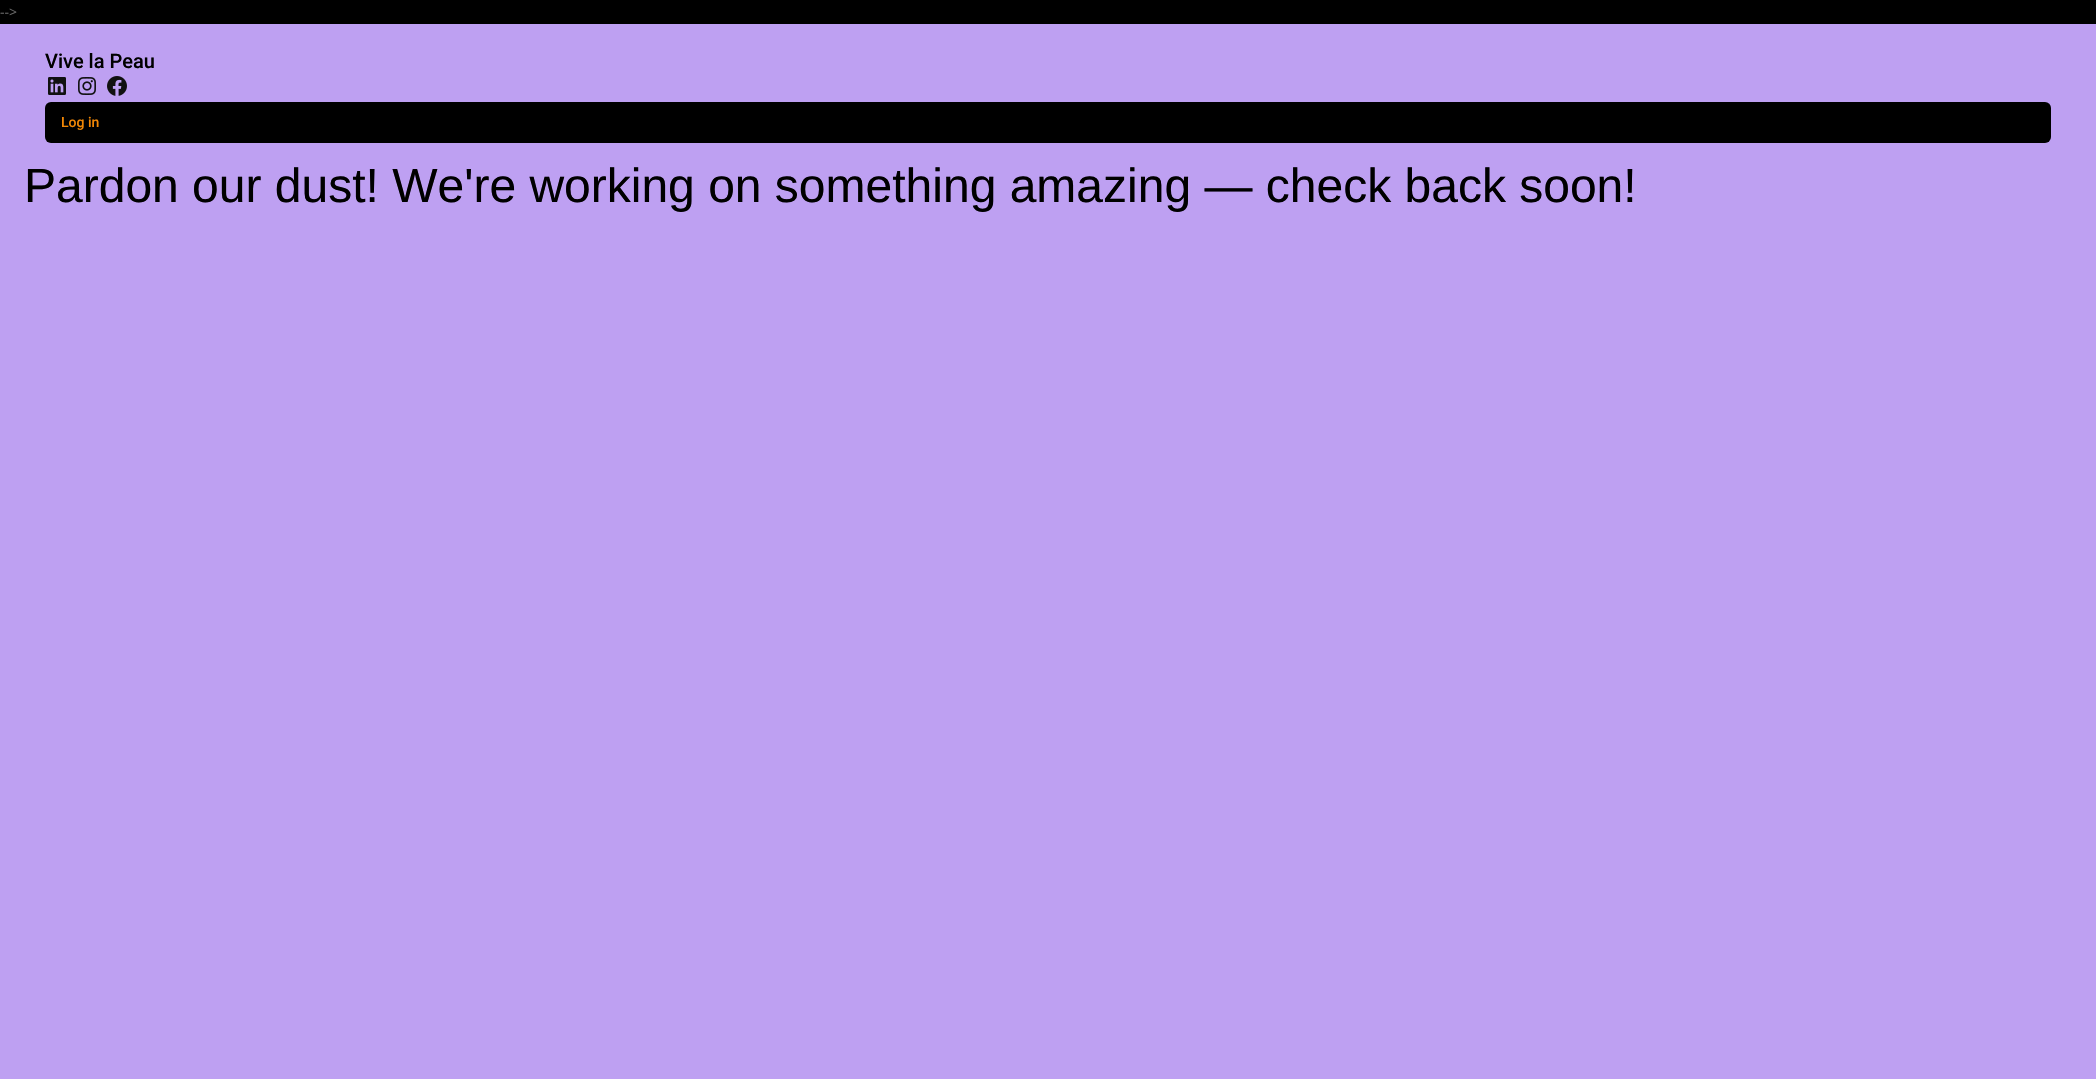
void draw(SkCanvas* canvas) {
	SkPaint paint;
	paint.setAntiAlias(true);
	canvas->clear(0xff000000);
	SkFont f1(fontMgr->matchFamilyStyle("Open Sans", SkFontStyle::Normal()), 14);
	f1.setSubpixel(true);
	paint.setColor(0xff666666);
	canvas->drawString("-->", 0, 17, f1, paint);
	paint.setColor(0xffbea0f2);
	canvas->drawRect(SkRect::MakeXYWH(0, 24, 2096, 1055), paint);
	SkFont f2(fontMgr->matchFamilyStyle("Roboto", SkFontStyle(500, SkFontStyle::kNormal_Width, SkFontStyle::kUpright_Slant)), 20);
	f2.setSubpixel(true);
	paint.setColor(0xff000000);
	canvas->drawString("Vive la Peau", 45, 68, f2, paint);
	canvas->drawImageRect(SkImages::DeferredFromEncodedData(SkData::MakeFromFileName("img1.png")), SkRect::MakeXYWH(48, 77, 18, 18), SkSamplingOptions());
	canvas->drawImageRect(SkImages::DeferredFromEncodedData(SkData::MakeFromFileName("img2.png")), SkRect::MakeXYWH(78, 77, 18, 18), SkSamplingOptions());
	canvas->drawImageRect(SkImages::DeferredFromEncodedData(SkData::MakeFromFileName("img3.png")), SkRect::MakeXYWH(107, 76, 20, 20), SkSamplingOptions());
	canvas->drawRoundRect(SkRect::MakeXYWH(45, 102, 2006, 41), 6, 6, paint);
	SkFont f3(fontMgr->matchFamilyStyle("Roboto", SkFontStyle(500, SkFontStyle::kNormal_Width, SkFontStyle::kUpright_Slant)), 14);
	f3.setSubpixel(true);
	paint.setColor(0xfff28705);
	canvas->drawString("Log in", 61, 127, f3, paint);
	SkFont f4(fontMgr->matchFamilyStyle("Liberation Sans", SkFontStyle::Normal()), 48);
	f4.setSubpixel(true);
	paint.setColor(0xff000000);
	canvas->drawString("Pardon our dust! We're working on something amazing — check back soon!", 24, 202, f4, paint);
}
